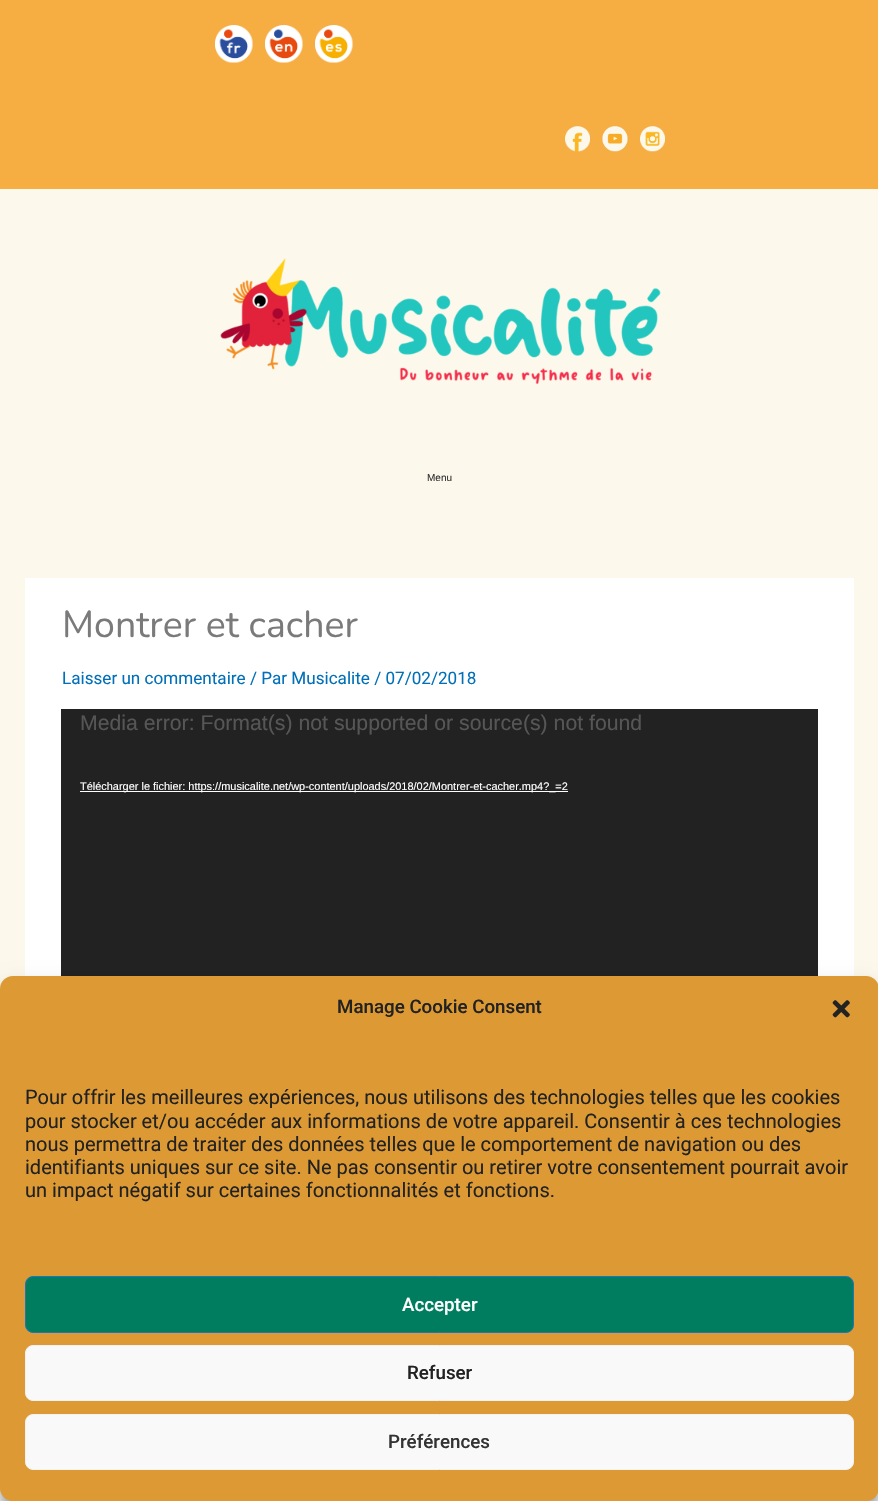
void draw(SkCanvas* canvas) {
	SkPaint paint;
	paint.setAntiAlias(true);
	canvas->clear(0xfffcf9ec);
	paint.setColor(0xfff6ad42);
	canvas->drawRect(SkRect::MakeXYWH(0, 0, 878, 189), paint);
	canvas->drawImageRect(SkImages::DeferredFromEncodedData(SkData::MakeFromFileName("img1.png")), SkRect::MakeXYWH(215, 25, 38, 38), SkSamplingOptions());
	canvas->drawImageRect(SkImages::DeferredFromEncodedData(SkData::MakeFromFileName("img2.png")), SkRect::MakeXYWH(265, 25, 38, 38), SkSamplingOptions());
	canvas->drawImageRect(SkImages::DeferredFromEncodedData(SkData::MakeFromFileName("img3.png")), SkRect::MakeXYWH(315, 25, 38, 38), SkSamplingOptions());
	canvas->drawImageRect(SkImages::DeferredFromEncodedData(SkData::MakeFromFileName("img4.png")), SkRect::MakeXYWH(565, 126, 25, 26), SkSamplingOptions());
	canvas->drawImageRect(SkImages::DeferredFromEncodedData(SkData::MakeFromFileName("img5.png")), SkRect::MakeXYWH(602, 126, 26, 26), SkSamplingOptions());
	canvas->drawImageRect(SkImages::DeferredFromEncodedData(SkData::MakeFromFileName("img6.png")), SkRect::MakeXYWH(640, 126, 25, 26), SkSamplingOptions());
	canvas->drawImageRect(SkImages::DeferredFromEncodedData(SkData::MakeFromFileName("img7.png")), SkRect::MakeXYWH(220, 258, 441, 126), SkSamplingOptions());
	SkFont f1(fontMgr->matchFamilyStyle("Liberation Sans", SkFontStyle::Normal()), 10);
	f1.setSubpixel(true);
	paint.setColor(0xff333333);
	canvas->drawString("Menu", 427, 481, f1, paint);
	paint.setColor(0xffffffff);
	canvas->drawRect(SkRect::MakeXYWH(25, 578, 829, 398), paint);
	SkFont f2(fontMgr->matchFamilyStyle("Nunito", SkFontStyle::Normal()), 37.5);
	f2.setSubpixel(true);
	paint.setColor(0xff7a7a7a);
	canvas->drawString("Montrer et cacher", 62, 637, f2, paint);
	SkFont f3(fontMgr->matchFamilyStyle("Roboto", SkFontStyle::Normal()), 17.1);
	f3.setSubpixel(true);
	paint.setColor(0xff0170b9);
	canvas->drawString("Laisser un commentaire / Par Musicalite / 07/02/2018", 62, 684, f3, paint);
	paint.setColor(0xff222222);
	canvas->drawRect(SkRect::MakeXYWH(61, 709, 757, 267), paint);
	SkFont f4(fontMgr->matchFamilyStyle("Liberation Sans", SkFontStyle::Normal()), 21.25);
	f4.setSubpixel(true);
	paint.setColor(0xff565656);
	canvas->drawString("Media error: Format(s) not supported or source(s) not found", 80, 730, f4, paint);
	paint.setColor(0xffffffff);
	canvas->drawRect(SkRect::MakeXYWH(80, 791, 488, 1), paint);
	SkFont f5(fontMgr->matchFamilyStyle("Liberation Sans", SkFontStyle::Normal()), 10.95);
	f5.setSubpixel(true);
	canvas->drawString("Télécharger le fichier: https://musicalite.net/wp-content/uploads/2018/02/Montrer-et-cacher.mp4?_=2", 80, 790, f5, paint);
	canvas->drawRect(SkRect::MakeXYWH(0, 1488, 878, 13), paint);
	paint.setColor(0x3b000000);
	paint.setMaskFilter(SkMaskFilter::MakeBlur(kNormal_SkBlurStyle, 4));
	canvas->drawRoundRect(SkRect::MakeXYWH(0, 984, 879, 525), 13, 13, paint);
	paint.setMaskFilter(nullptr);
	paint.setColor(0x30000000);
	paint.setMaskFilter(SkMaskFilter::MakeBlur(kNormal_SkBlurStyle, 12.5));
	canvas->drawRoundRect(SkRect::MakeXYWH(0, 989, 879, 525), 13, 13, paint);
	paint.setMaskFilter(nullptr);
	paint.setColor(0xffdd9933);
	canvas->drawRoundRect(SkRect::MakeXYWH(0, 976, 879, 525), 13, 13, paint);
	SkFont f6(fontMgr->matchFamilyStyle("Roboto", SkFontStyle(500, SkFontStyle::kNormal_Width, SkFontStyle::kUpright_Slant)), 18.75);
	f6.setSubpixel(true);
	paint.setColor(0xff222222);
	canvas->drawString("Manage Cookie Consent", 337, 1013, f6, paint);
	canvas->drawImageRect(SkImages::DeferredFromEncodedData(SkData::MakeFromFileName("img8.png")), SkRect::MakeXYWH(832, 1000, 18, 18), SkSamplingOptions());
	SkFont f7(fontMgr->matchFamilyStyle("Roboto", SkFontStyle::Normal()), 20);
	f7.setSubpixel(true);
	canvas->drawString("Pour offrir les meilleures expériences, nous utilisons des technologies telles que les cookies", 25, 1104, f7, paint);
	canvas->drawString("pour stocker et/ou accéder aux informations de votre appareil. Consentir à ces technologies", 25, 1128, f7, paint);
	canvas->drawString("nous permettra de traiter des données telles que le comportement de navigation ou des", 25, 1151, f7, paint);
	canvas->drawString("identifiants uniques sur ce site. Ne pas consentir ou retirer votre consentement pourrait avoir", 25, 1174, f7, paint);
	canvas->drawString("un impact négatif sur certaines fonctionnalités et fonctions.", 25, 1197, f7, paint);
	paint.setColor(0xff007c5f);
	canvas->drawRoundRect(SkRect::MakeXYWH(25.5, 1276.5, 828, 56), 7.5, 7.5, paint);
	paint.setStroke(true);
	paint.setStrokeWidth(1);
	paint.setColor(0xff1e73be);
	canvas->drawRoundRect(SkRect::MakeXYWH(25.5, 1276.5, 828, 56), 7.5, 7.5, paint);
	paint.setStroke(false);
	paint.setColor(0xffffffff);
	canvas->drawString("Accepter", 402, 1311, f6, paint);
	paint.setColor(0xfff9f9f9);
	canvas->drawRoundRect(SkRect::MakeXYWH(25.5, 1345.5, 828, 55), 7.5, 7.5, paint);
	paint.setStroke(true);
	paint.setColor(0xfff2f2f2);
	canvas->drawRoundRect(SkRect::MakeXYWH(25.5, 1345.5, 828, 55), 7.5, 7.5, paint);
	paint.setStroke(false);
	paint.setColor(0xff222222);
	canvas->drawString("Refuser", 407, 1379, f6, paint);
	paint.setColor(0xfff9f9f9);
	canvas->drawRoundRect(SkRect::MakeXYWH(25.5, 1414.5, 828, 55), 7.5, 7.5, paint);
	paint.setStroke(true);
	paint.setColor(0xfff2f2f2);
	canvas->drawRoundRect(SkRect::MakeXYWH(25.5, 1414.5, 828, 55), 7.5, 7.5, paint);
	paint.setStroke(false);
	paint.setColor(0xff333333);
	canvas->drawString("Préférences", 388, 1448, f6, paint);
}
